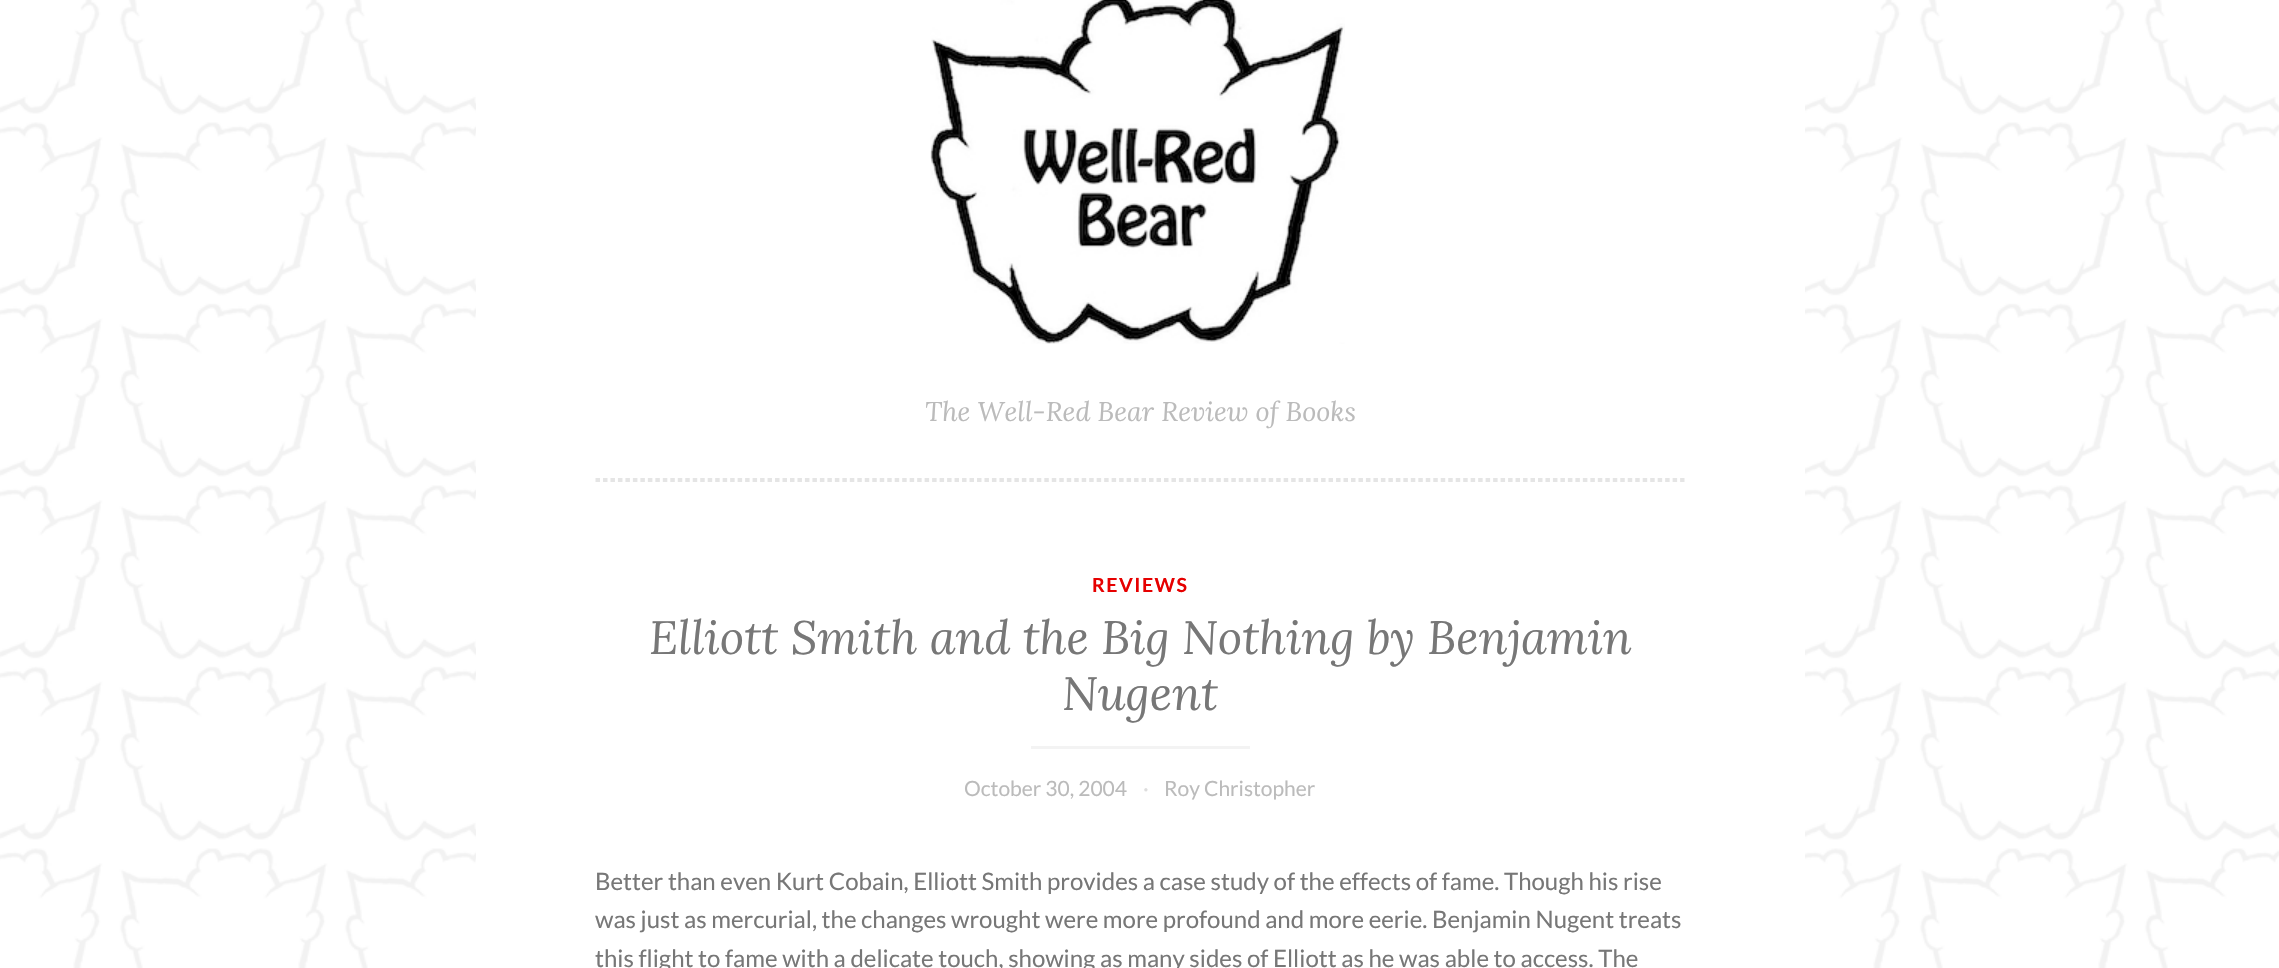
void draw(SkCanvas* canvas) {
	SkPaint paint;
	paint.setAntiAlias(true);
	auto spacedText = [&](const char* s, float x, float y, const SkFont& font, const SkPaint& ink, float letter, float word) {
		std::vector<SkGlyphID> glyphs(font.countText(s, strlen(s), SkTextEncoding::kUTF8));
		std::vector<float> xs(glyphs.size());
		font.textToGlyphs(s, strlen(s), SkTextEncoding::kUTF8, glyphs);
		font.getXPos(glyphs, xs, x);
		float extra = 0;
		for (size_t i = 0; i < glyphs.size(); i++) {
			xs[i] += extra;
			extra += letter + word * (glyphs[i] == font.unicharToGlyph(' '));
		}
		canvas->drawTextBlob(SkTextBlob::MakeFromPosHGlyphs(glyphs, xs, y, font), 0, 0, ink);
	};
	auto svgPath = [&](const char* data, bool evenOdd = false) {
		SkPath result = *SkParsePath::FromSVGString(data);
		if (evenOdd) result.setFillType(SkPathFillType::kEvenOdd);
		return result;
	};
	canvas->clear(0xffffffff);
	canvas->drawImageRect(SkImages::DeferredFromEncodedData(SkData::MakeFromFileName("img1.png")), SkRect::MakeXYWH(0, 0, 2279, 968), SkSamplingOptions());
	paint.setColor(0xffffffff);
	canvas->drawRect(SkRect::MakeXYWH(476, 0, 1329, 968), paint);
	canvas->drawImageRect(SkImages::DeferredFromEncodedData(SkData::MakeFromFileName("img2.png")), SkRect::MakeXYWH(930, 0, 415, 344), SkSamplingOptions());
	SkFont f1(fontMgr->matchFamilyStyle("Lora", SkFontStyle::Italic()), 27);
	f1.setSubpixel(true);
	paint.setColor(0xffbbbbbb);
	canvas->drawString("The Well-Red Bear Review of Books", 925, 421, f1, paint);
	paint.setStroke(true);
	paint.setStrokeWidth(1.5);
	paint.setColor(0xffdddddd);
	paint.setPathEffect(SkDashPathEffect::Make({{4.5f, 2.98f}}, 0));
	canvas->drawPath(svgPath("M595.5 479H1684.5"), paint);
	paint.setPathEffect(nullptr);
	paint.setPathEffect(SkDashPathEffect::Make({{4.5f, 2.98f}}, 0));
	canvas->drawPath(svgPath("M595.5 481H1684.5"), paint);
	paint.setPathEffect(nullptr);
	SkFont f2(fontMgr->matchFamilyStyle("Lato", SkFontStyle::Bold()), 19.5);
	f2.setSubpixel(true);
	paint.setStroke(false);
	paint.setColor(0xffe60000);
	spacedText("REVIEWS", 1092, 592, f2, paint, 1.5, 0);
	SkFont f3(fontMgr->matchFamilyStyle("Lora", SkFontStyle::Italic()), 46.9);
	f3.setSubpixel(true);
	paint.setColor(0xff777777);
	canvas->drawString("Elliott Smith and the Big Nothing by Benjamin", 649, 654, f3, paint);
	canvas->drawString("Nugent", 1062, 710, f3, paint);
	paint.setColor(0xfff3f3f3);
	canvas->drawRect(SkRect::MakeXYWH(1031, 746, 219, 3), paint);
	SkFont f4(fontMgr->matchFamilyStyle("Lato", SkFontStyle::Normal()), 21);
	f4.setSubpixel(true);
	paint.setColor(0xffbbbbbb);
	canvas->drawString("October 30, 2004", 964, 796, f4, paint);
	paint.setColor(0xffdddddd);
	canvas->drawString("·", 1143, 796, f4, paint);
	paint.setColor(0xffbbbbbb);
	canvas->drawString("Roy Christopher", 1164, 796, f4, paint);
	SkFont f5(fontMgr->matchFamilyStyle("Lato", SkFontStyle::Normal()), 24);
	f5.setSubpixel(true);
	paint.setColor(0xff777777);
	canvas->drawString("Better than even Kurt Cobain, Elliott Smith provides a case study of the effects of fame. Though his rise", 595, 890, f5, paint);
	canvas->drawString("was just as mercurial, the changes wrought were more profound and more eerie. Benjamin Nugent treats", 595, 928, f5, paint);
	canvas->drawString("this flight to fame with a delicate touch, showing as many sides of Elliott as he was able to access. The", 595, 967, f5, paint);
}
